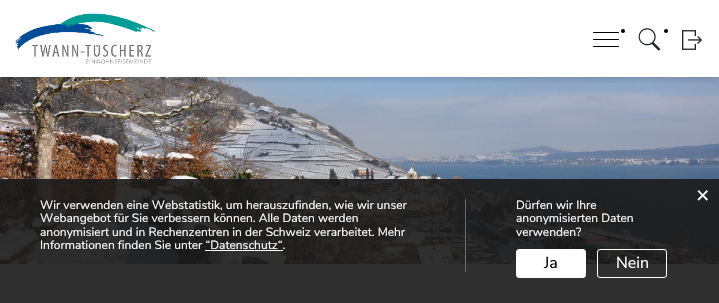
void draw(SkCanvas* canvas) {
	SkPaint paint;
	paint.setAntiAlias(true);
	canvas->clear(0xffffffff);
	canvas->drawImageRect(SkImages::DeferredFromEncodedData(SkData::MakeFromFileName("img4.png")), SkRect::MakeXYWH(0, 77, 719, 187), SkSamplingOptions());
	canvas->save();
	canvas->clipRect(SkRect::MakeXYWH(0, 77, 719, 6));
	paint.setColor(0x33000000);
	paint.setMaskFilter(SkMaskFilter::MakeBlur(kNormal_SkBlurStyle, 5));
	canvas->drawRect(SkRect::MakeXYWH(0, 0, 719, 77), paint);
	paint.setMaskFilter(nullptr);
	canvas->restore();
	canvas->drawImageRect(SkImages::DeferredFromEncodedData(SkData::MakeFromFileName("img1.png")), SkRect::MakeXYWH(15, 13, 140, 51), SkSamplingOptions());
	paint.setColor(0xff000000);
	canvas->drawCircle(623, 31, 2, paint);
	canvas->drawImageRect(SkImages::DeferredFromEncodedData(SkData::MakeFromFileName("img2.png")), SkRect::MakeXYWH(638, 28, 23, 23), SkSamplingOptions());
	canvas->drawCircle(666, 31, 2, paint);
	canvas->drawImageRect(SkImages::DeferredFromEncodedData(SkData::MakeFromFileName("img3.png")), SkRect::MakeXYWH(682, 30, 20, 20), SkSamplingOptions());
	canvas->drawRoundRect(SkRect::MakeXYWH(593, 32, 26, 1), 0.5, 0.5, paint);
	canvas->drawRoundRect(SkRect::MakeXYWH(593, 39, 26, 1), 0.5, 0.5, paint);
	canvas->drawRoundRect(SkRect::MakeXYWH(593, 46, 26, 1), 0.5, 0.5, paint);
	paint.setColor(0xe6191919);
	canvas->drawRect(SkRect::MakeXYWH(0, 179, 719, 124), paint);
	SkFont f1(fontMgr->matchFamilyStyle("Liberation Sans", SkFontStyle::Normal()), 23);
	f1.setSubpixel(true);
	paint.setColor(0xffffffff);
	canvas->drawString("×", 696, 203, f1, paint);
	paint.setColor(0xff6d6d6d);
	canvas->drawRect(SkRect::MakeXYWH(465, 199, 1, 73), paint);
	SkFont f2(fontMgr->matchFamilyStyle("Nunito Sans", SkFontStyle::Normal()), 12);
	f2.setSubpixel(true);
	paint.setColor(0xffffffff);
	canvas->drawString("Wir verwenden eine Webstatistik, um herauszufinden, wie wir unser", 40, 209, f2, paint);
	canvas->drawString("Webangebot für Sie verbessern können. Alle Daten werden", 40, 222, f2, paint);
	canvas->drawString("anonymisiert und in Rechenzentren in der Schweiz verarbeitet. Mehr", 40, 236, f2, paint);
	canvas->drawString("Informationen finden Sie unter “Datenschutz“.", 40, 249, f2, paint);
	canvas->drawRect(SkRect::MakeXYWH(205, 250, 78, 1), paint);
	canvas->drawString("Dürfen wir Ihre", 516, 209, f2, paint);
	canvas->drawString("anonymisierten Daten", 516, 222, f2, paint);
	canvas->drawString("verwenden?", 516, 236, f2, paint);
	canvas->drawRoundRect(SkRect::MakeXYWH(516.5, 249.5, 69, 28), 2.5, 2.5, paint);
	paint.setStroke(true);
	paint.setStrokeWidth(1);
	canvas->drawRoundRect(SkRect::MakeXYWH(516.5, 249.5, 69, 28), 2.5, 2.5, paint);
	SkFont f3(fontMgr->matchFamilyStyle("Nunito Sans", SkFontStyle::Normal()), 16);
	f3.setSubpixel(true);
	paint.setStroke(false);
	paint.setColor(0xff000000);
	canvas->drawString("Ja", 544, 268, f3, paint);
	paint.setStroke(true);
	paint.setColor(0xffffffff);
	canvas->drawRoundRect(SkRect::MakeXYWH(597.5, 249.5, 69, 28), 2.5, 2.5, paint);
	paint.setStroke(false);
	canvas->drawString("Nein", 616, 268, f3, paint);
}
